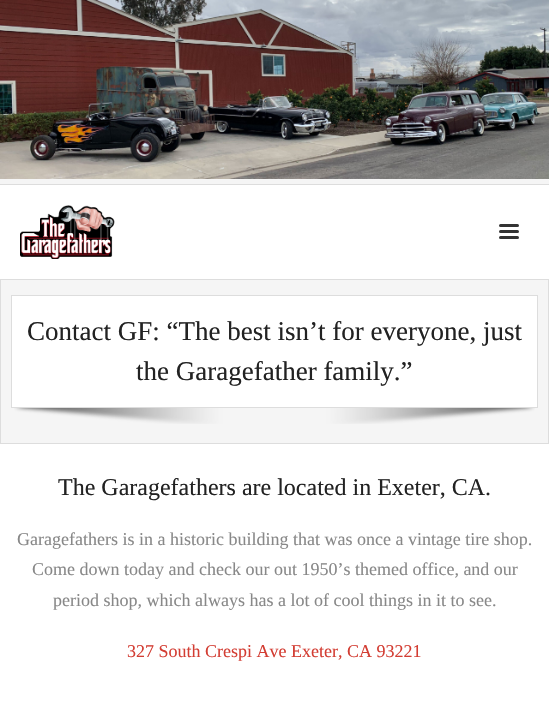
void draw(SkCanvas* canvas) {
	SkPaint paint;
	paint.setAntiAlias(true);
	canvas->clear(0xffffffff);
	canvas->drawImageRect(SkImages::DeferredFromEncodedData(SkData::MakeFromFileName("img1.png")), SkRect::MakeXYWH(0, 0, 549, 179), SkSamplingOptions());
	paint.setColor(0xffdddddd);
	canvas->drawRect(SkRect::MakeXYWH(0, 279, 549, 1), paint);
	paint.setColor(0xfff5f5f5);
	canvas->drawRect(SkRect::MakeXYWH(0, 179, 549, 5), paint);
	paint.setColor(0xffdddddd);
	canvas->drawRect(SkRect::MakeXYWH(0, 184, 549, 1), paint);
	canvas->drawImageRect(SkImages::DeferredFromEncodedData(SkData::MakeFromFileName("img2.png")), SkRect::MakeXYWH(20, 205, 95, 54), SkSamplingOptions());
	paint.setColor(0xff333333);
	canvas->drawRoundRect(SkRect::MakeXYWH(499, 224, 20, 3), 1.5, 1.5, paint);
	canvas->drawRoundRect(SkRect::MakeXYWH(499, 230, 20, 3), 1.5, 1.5, paint);
	canvas->drawRoundRect(SkRect::MakeXYWH(499, 236, 20, 3), 1.5, 1.5, paint);
	paint.setColor(0xfff5f5f5);
	canvas->drawRect(SkRect::MakeXYWH(1, 280, 547, 163), paint);
	paint.setColor(0xffdddddd);
	canvas->drawRect(SkRect::MakeXYWH(548, 280, 1, 164), paint);
	canvas->drawRect(SkRect::MakeXYWH(0, 443, 549, 1), paint);
	canvas->drawRect(SkRect::MakeXYWH(0, 280, 1, 164), paint);
	paint.setColor(0xffffffff);
	canvas->drawRect(SkRect::MakeXYWH(11.5, 295.5, 526, 112), paint);
	paint.setStroke(true);
	paint.setStrokeWidth(1);
	paint.setColor(0xffdddddd);
	canvas->drawRect(SkRect::MakeXYWH(11.5, 295.5, 526, 112), paint);
	SkFont f1(fontMgr->matchFamilyStyle("Liberation Serif", SkFontStyle::Normal()), 27);
	f1.setSubpixel(true);
	paint.setStroke(false);
	paint.setColor(0xff222222);
	canvas->drawString("Contact GF: “The best isn’t for everyone, just", 27, 340, f1, paint);
	canvas->drawString("the Garagefather family.”", 136, 380, f1, paint);
	canvas->drawImageRect(SkImages::DeferredFromEncodedData(SkData::MakeFromFileName("img3.png")), SkRect::MakeXYWH(14, 408, 521, 16), SkSamplingOptions());
	SkFont f2(fontMgr->matchFamilyStyle("Liberation Serif", SkFontStyle::Normal()), 24);
	f2.setSubpixel(true);
	canvas->drawString("The Garagefathers are located in Exeter, CA.", 58, 495, f2, paint);
	SkFont f3(fontMgr->matchFamilyStyle("Liberation Serif", SkFontStyle::Normal()), 18);
	f3.setSubpixel(true);
	paint.setColor(0xff888888);
	canvas->drawString("Garagefathers is in a historic building that was once a vintage tire shop.", 17, 545, f3, paint);
	canvas->drawString("Come down today and check our out 1950’s themed office, and our", 32, 575, f3, paint);
	canvas->drawString("period shop, which always has a lot of cool things in it to see.", 53, 606, f3, paint);
	paint.setColor(0xffd33d33);
	canvas->drawString("327 South Crespi Ave Exeter, CA 93221", 127, 657, f3, paint);
}
